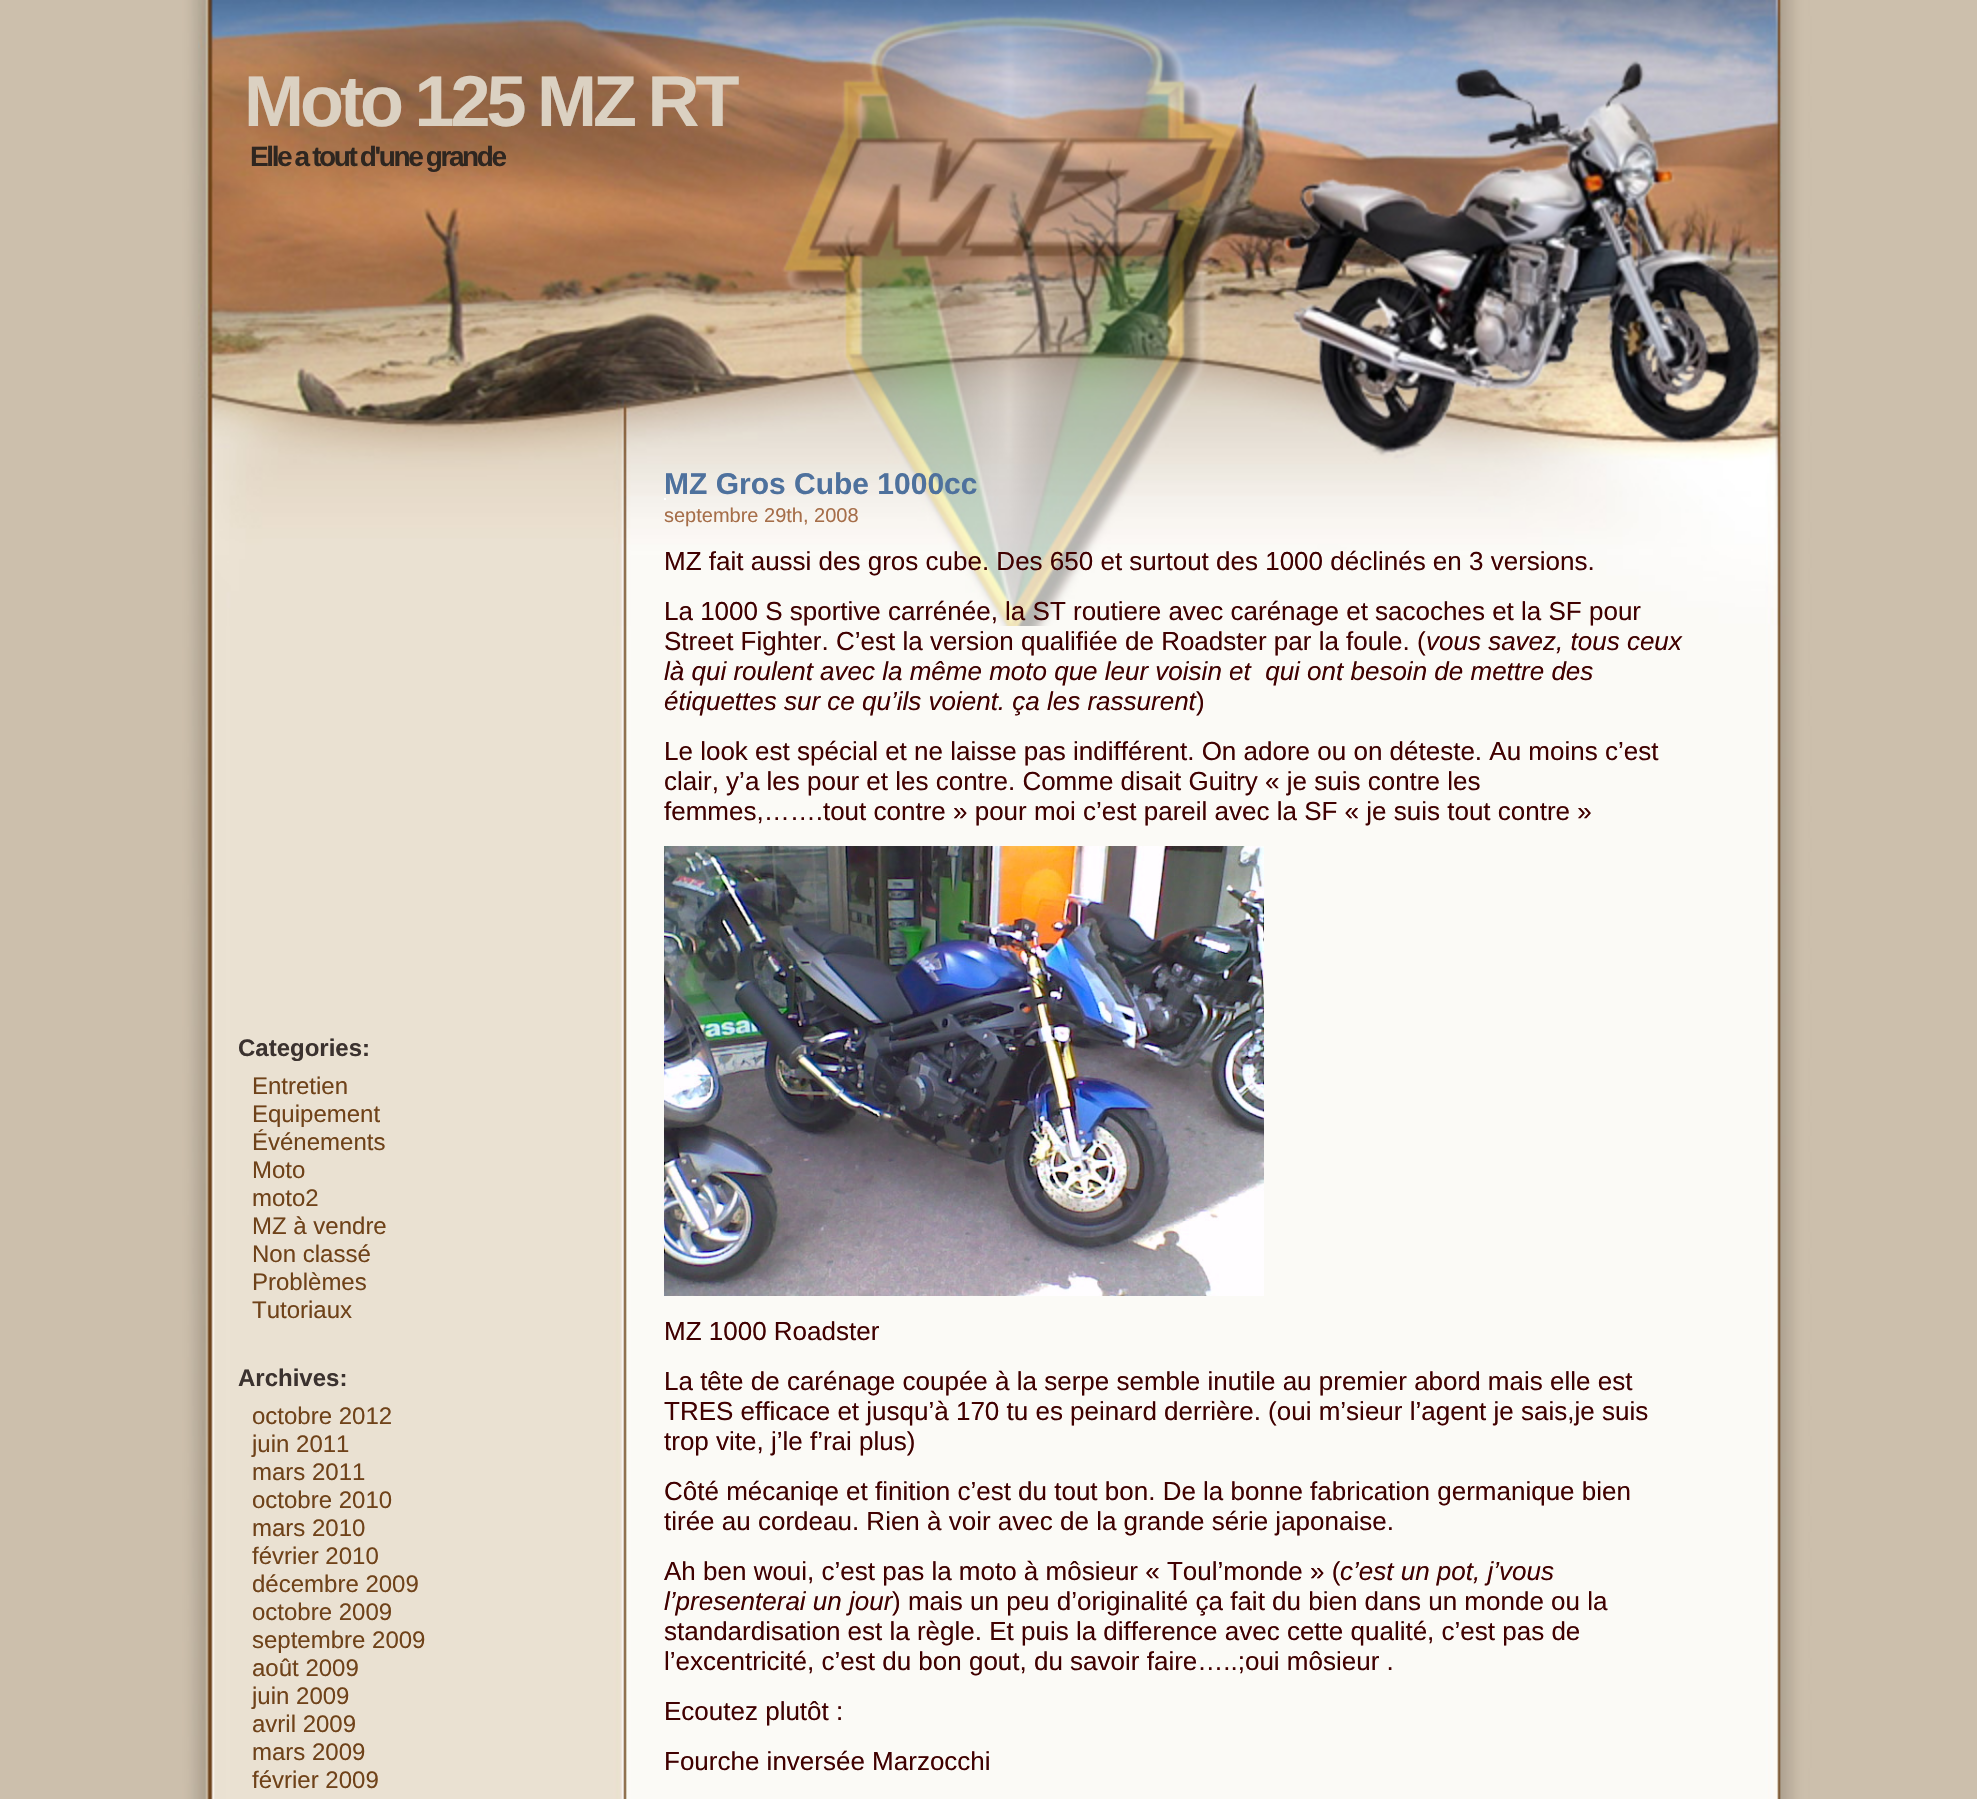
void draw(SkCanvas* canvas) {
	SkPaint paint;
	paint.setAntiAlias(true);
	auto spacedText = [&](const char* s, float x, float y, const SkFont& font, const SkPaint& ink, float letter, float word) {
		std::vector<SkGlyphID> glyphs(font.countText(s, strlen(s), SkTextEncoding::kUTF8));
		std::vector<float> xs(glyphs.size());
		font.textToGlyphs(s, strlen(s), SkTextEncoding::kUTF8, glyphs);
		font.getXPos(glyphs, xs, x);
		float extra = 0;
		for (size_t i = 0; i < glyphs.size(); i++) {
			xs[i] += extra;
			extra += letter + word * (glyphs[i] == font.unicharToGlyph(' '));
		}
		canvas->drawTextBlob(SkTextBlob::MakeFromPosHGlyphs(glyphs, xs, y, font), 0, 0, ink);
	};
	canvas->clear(0xffccbfac);
	canvas->drawImageRect(SkImages::DeferredFromEncodedData(SkData::MakeFromFileName("img1.png")), SkRect::MakeXYWH(134, 0, 1710, 1799), SkSamplingOptions());
	canvas->drawImageRect(SkImages::DeferredFromEncodedData(SkData::MakeFromFileName("img2.png")), SkRect::MakeXYWH(198, 0, 1584, 626), SkSamplingOptions());
	SkFont f1(fontMgr->matchFamilyStyle("Liberation Sans", SkFontStyle::Bold()), 72);
	f1.setSubpixel(true);
	paint.setColor(0xffdbd1c2);
	spacedText("Moto 125 MZ RT", 244, 126, f1, paint, -4, -1.5);
	SkFont f2(fontMgr->matchFamilyStyle("Liberation Sans", SkFontStyle::Bold()), 28);
	f2.setSubpixel(true);
	paint.setColor(0xff2e2620);
	spacedText("Elle a tout d'une grande", 250, 166, f2, paint, -2.4, -1);
	SkFont f3(fontMgr->matchFamilyStyle("Liberation Sans", SkFontStyle::Bold()), 24);
	f3.setSubpixel(true);
	paint.setColor(0xff3b322f);
	canvas->drawString("Categories:", 238, 1056, f3, paint);
	SkFont f4(fontMgr->matchFamilyStyle("Liberation Sans", SkFontStyle::Normal()), 24);
	f4.setSubpixel(true);
	paint.setColor(0xff6f4219);
	canvas->drawString("Entretien", 252, 1094, f4, paint);
	canvas->drawString("Equipement", 252, 1122, f4, paint);
	canvas->drawString("Événements", 252, 1150, f4, paint);
	canvas->drawString("Moto", 252, 1178, f4, paint);
	canvas->drawString("moto2", 252, 1206, f4, paint);
	canvas->drawString("MZ à vendre", 252, 1234, f4, paint);
	canvas->drawString("Non classé", 252, 1262, f4, paint);
	canvas->drawString("Problèmes", 252, 1290, f4, paint);
	canvas->drawString("Tutoriaux", 252, 1318, f4, paint);
	paint.setColor(0xff3b322f);
	canvas->drawString("Archives:", 238, 1386, f3, paint);
	paint.setColor(0xff6f4219);
	canvas->drawString("octobre 2012", 252, 1424, f4, paint);
	canvas->drawString("juin 2011", 252, 1452, f4, paint);
	canvas->drawString("mars 2011", 252, 1480, f4, paint);
	canvas->drawString("octobre 2010", 252, 1508, f4, paint);
	canvas->drawString("mars 2010", 252, 1536, f4, paint);
	canvas->drawString("février 2010", 252, 1564, f4, paint);
	canvas->drawString("décembre 2009", 252, 1592, f4, paint);
	canvas->drawString("octobre 2009", 252, 1620, f4, paint);
	canvas->drawString("septembre 2009", 252, 1648, f4, paint);
	canvas->drawString("août 2009", 252, 1676, f4, paint);
	canvas->drawString("juin 2009", 252, 1704, f4, paint);
	canvas->drawString("avril 2009", 252, 1732, f4, paint);
	canvas->drawString("mars 2009", 252, 1760, f4, paint);
	canvas->drawString("février 2009", 252, 1788, f4, paint);
	paint.setColor(0xffffffff);
	canvas->drawRect(SkRect::MakeXYWH(664, 498, 2, 2), paint);
	SkFont f5(fontMgr->matchFamilyStyle("Liberation Sans", SkFontStyle::Bold()), 30);
	f5.setSubpixel(true);
	paint.setColor(0xff4e719d);
	canvas->drawString("MZ Gros Cube 1000cc", 664, 494, f5, paint);
	SkFont f6(fontMgr->matchFamilyStyle("Liberation Sans", SkFontStyle::Normal()), 20);
	f6.setSubpixel(true);
	paint.setColor(0xffa66e49);
	canvas->drawString("septembre 29th, 2008", 664, 522, f6, paint);
	SkFont f7(fontMgr->matchFamilyStyle("Liberation Sans", SkFontStyle::Normal()), 26);
	f7.setSubpixel(true);
	paint.setColor(0xff400000);
	canvas->drawString("MZ fait aussi des gros cube. Des 650 et surtout des 1000 déclinés en 3 versions.", 664, 570, f7, paint);
	canvas->drawString("La 1000 S sportive carrénée, la ST routiere avec carénage et sacoches et la SF pour", 664, 620, f7, paint);
	canvas->drawString("Street Fighter. C’est la version qualifiée de Roadster par la foule. (", 664, 650, f7, paint);
	SkFont f8(fontMgr->matchFamilyStyle("Liberation Sans", SkFontStyle::Italic()), 26);
	f8.setSubpixel(true);
	canvas->drawString("vous savez, tous ceux", 1426, 650, f8, paint);
	canvas->drawString("là qui roulent avec la même moto que leur voisin et  qui ont besoin de mettre des", 664, 680, f8, paint);
	canvas->drawString("étiquettes sur ce qu’ils voient. ça les rassurent", 664, 710, f8, paint);
	canvas->drawString(")", 1196, 710, f7, paint);
	canvas->drawString("Le look est spécial et ne laisse pas indifférent. On adore ou on déteste. Au moins c’est", 664, 760, f7, paint);
	canvas->drawString("clair, y’a les pour et les contre. Comme disait Guitry « je suis contre les", 664, 790, f7, paint);
	canvas->drawString("femmes,…….tout contre » pour moi c’est pareil avec la SF « je suis tout contre »", 664, 820, f7, paint);
	canvas->drawImageRect(SkImages::DeferredFromEncodedData(SkData::MakeFromFileName("img3.png")), SkRect::MakeXYWH(664, 846, 600, 450), SkSamplingOptions());
	canvas->drawString("MZ 1000 Roadster", 664, 1340, f7, paint);
	canvas->drawString("La tête de carénage coupée à la serpe semble inutile au premier abord mais elle est", 664, 1390, f7, paint);
	canvas->drawString("TRES efficace et jusqu’à 170 tu es peinard derrière. (oui m’sieur l’agent je sais,je suis", 664, 1420, f7, paint);
	canvas->drawString("trop vite, j’le f’rai plus)", 664, 1450, f7, paint);
	canvas->drawString("Côté mécaniqe et finition c’est du tout bon. De la bonne fabrication germanique bien", 664, 1500, f7, paint);
	canvas->drawString("tirée au cordeau. Rien à voir avec de la grande série japonaise.", 664, 1530, f7, paint);
	canvas->drawString("Ah ben woui, c’est pas la moto à môsieur « Toul’monde » (", 664, 1580, f7, paint);
	canvas->drawString("c’est un pot, j’vous", 1340, 1580, f8, paint);
	canvas->drawString("l’presenterai un jour", 664, 1610, f8, paint);
	canvas->drawString(") mais un peu d’originalité ça fait du bien dans un monde ou la", 892, 1610, f7, paint);
	canvas->drawString("standardisation est la règle. Et puis la difference avec cette qualité, c’est pas de", 664, 1640, f7, paint);
	canvas->drawString("l’excentricité, c’est du bon gout, du savoir faire…..;oui môsieur .", 664, 1670, f7, paint);
	canvas->drawString("Ecoutez plutôt :", 664, 1720, f7, paint);
	canvas->drawString("Fourche inversée Marzocchi", 664, 1770, f7, paint);
}
